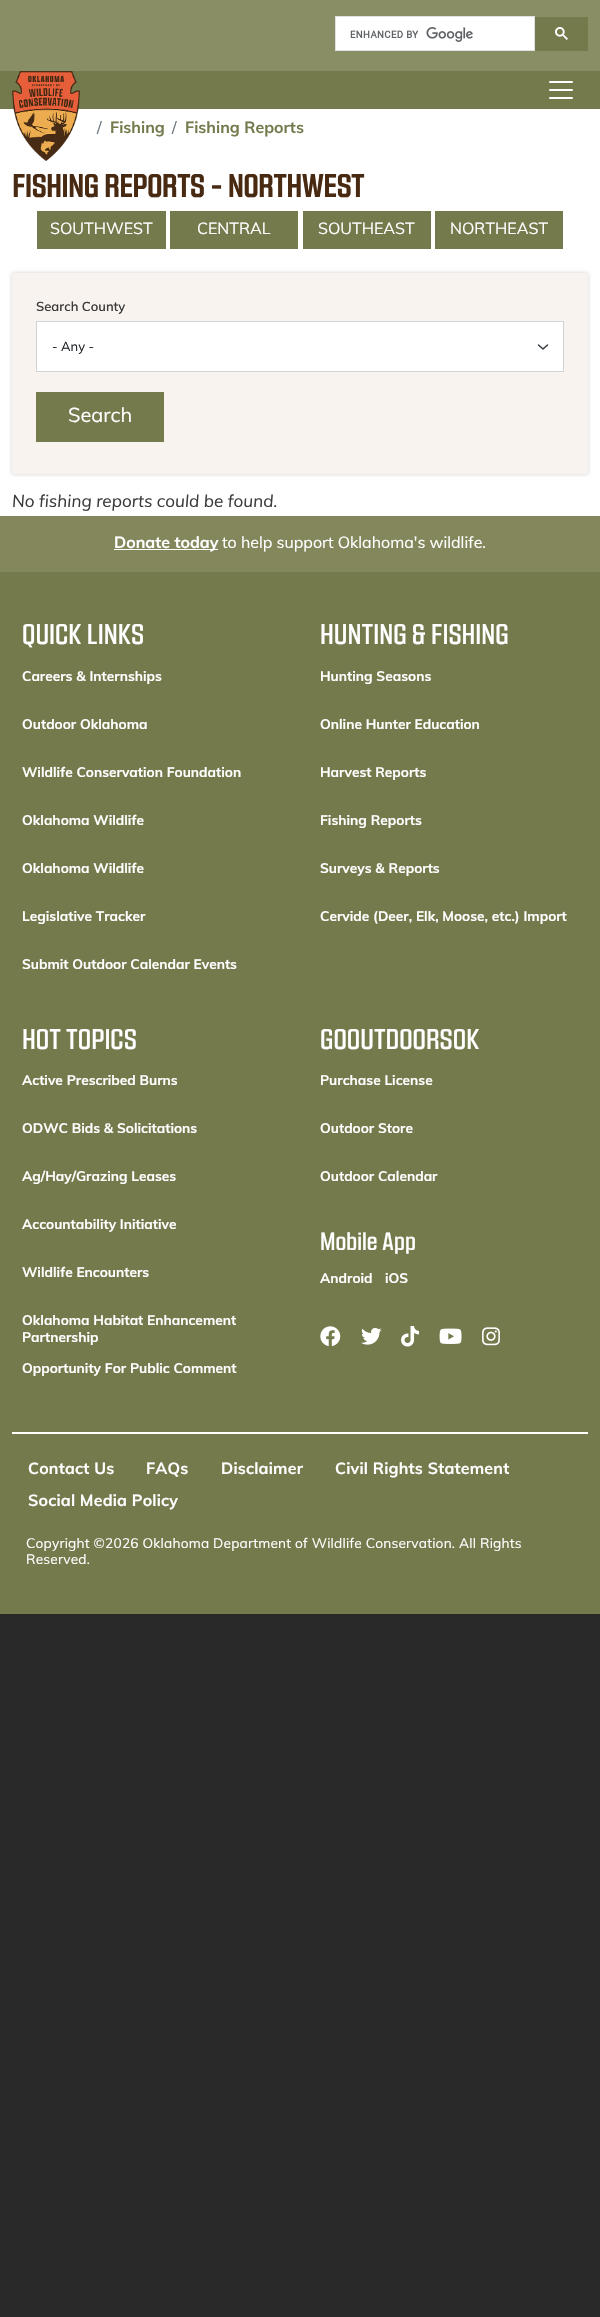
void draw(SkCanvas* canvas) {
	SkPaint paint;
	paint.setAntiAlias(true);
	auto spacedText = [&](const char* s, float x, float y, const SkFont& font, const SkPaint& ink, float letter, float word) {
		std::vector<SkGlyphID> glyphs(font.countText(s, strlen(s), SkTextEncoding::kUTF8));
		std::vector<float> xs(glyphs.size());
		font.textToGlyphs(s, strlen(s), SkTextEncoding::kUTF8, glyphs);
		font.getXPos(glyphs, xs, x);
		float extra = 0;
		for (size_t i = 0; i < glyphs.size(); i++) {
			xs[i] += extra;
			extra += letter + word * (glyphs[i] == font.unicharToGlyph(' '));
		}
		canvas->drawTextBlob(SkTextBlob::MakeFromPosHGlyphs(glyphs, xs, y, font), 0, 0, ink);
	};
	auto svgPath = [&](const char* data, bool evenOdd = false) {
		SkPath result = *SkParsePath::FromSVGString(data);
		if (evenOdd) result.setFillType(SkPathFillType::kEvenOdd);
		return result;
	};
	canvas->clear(0xff292929);
	paint.setColor(0xffffffff);
	canvas->drawRect(SkRect::MakeXYWH(0, 109, 600, 407), paint);
	paint.setColor(0xff8a8e64);
	canvas->drawRect(SkRect::MakeXYWH(0, 0, 600, 71), paint);
	paint.setColor(0xffffffff);
	canvas->drawRect(SkRect::MakeXYWH(335.5, 16.5, 199, 34), paint);
	paint.setStroke(true);
	paint.setStrokeWidth(1);
	paint.setColor(0xffdfe1e5);
	canvas->drawRect(SkRect::MakeXYWH(335.5, 16.5, 199, 34), paint);
	canvas->drawImageRect(SkImages::DeferredFromEncodedData(SkData::MakeFromFileName("img1.png")), SkRect::MakeXYWH(350, 27, 123, 15), SkSamplingOptions());
	paint.setStroke(false);
	paint.setColor(0xff757a4d);
	canvas->drawRect(SkRect::MakeXYWH(535, 17, 53, 34), paint);
	canvas->drawImageRect(SkImages::DeferredFromEncodedData(SkData::MakeFromFileName("img2.png")), SkRect::MakeXYWH(555, 27, 13, 13), SkSamplingOptions());
	canvas->drawRect(SkRect::MakeXYWH(0, 71, 600, 38), paint);
	canvas->drawImageRect(SkImages::DeferredFromEncodedData(SkData::MakeFromFileName("img3.png")), SkRect::MakeXYWH(12, 71, 68, 90), SkSamplingOptions());
	canvas->drawImageRect(SkImages::DeferredFromEncodedData(SkData::MakeFromFileName("img4.png")), SkRect::MakeXYWH(549, 81, 24, 18), SkSamplingOptions());
	SkFont f1(fontMgr->matchFamilyStyle("Muli", SkFontStyle::Normal()), 16);
	f1.setSubpixel(true);
	paint.setColor(0xff6c757d);
	canvas->drawString("/", 97, 133, f1, paint);
	SkFont f2(fontMgr->matchFamilyStyle("Muli", SkFontStyle::Bold()), 16);
	f2.setSubpixel(true);
	paint.setColor(0xff757a4d);
	canvas->drawString("Fishing", 110, 133, f2, paint);
	paint.setColor(0xff6c757d);
	canvas->drawString("/", 172, 133, f1, paint);
	paint.setColor(0xff757a4d);
	canvas->drawString("Fishing Reports", 185, 133, f2, paint);
	SkFont f3(fontMgr->matchFamilyStyle("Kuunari", SkFontStyle::Bold()), 31);
	f3.setSubpixel(true);
	paint.setColor(0xff482911);
	canvas->drawString("FISHING REPORTS - NORTHWEST", 12, 197, f3, paint);
	paint.setColor(0xff757a4d);
	canvas->drawRect(SkRect::MakeXYWH(37, 211, 129, 38), paint);
	paint.setColor(0xffffffff);
	canvas->drawString("SOUTHWEST", 50, 234, f1, paint);
	paint.setColor(0xff757a4d);
	canvas->drawRect(SkRect::MakeXYWH(170, 211, 128, 38), paint);
	paint.setColor(0xffffffff);
	canvas->drawString("CENTRAL", 197, 234, f1, paint);
	paint.setColor(0xff757a4d);
	canvas->drawRect(SkRect::MakeXYWH(303, 211, 128, 38), paint);
	paint.setColor(0xffffffff);
	canvas->drawString("SOUTHEAST", 318, 234, f1, paint);
	paint.setColor(0xff757a4d);
	canvas->drawRect(SkRect::MakeXYWH(435, 211, 128, 38), paint);
	paint.setColor(0xffffffff);
	canvas->drawString("NORTHEAST", 450, 234, f1, paint);
	paint.setColor(0x2e000000);
	paint.setMaskFilter(SkMaskFilter::MakeBlur(kNormal_SkBlurStyle, 2));
	canvas->drawRect(SkRect::MakeXYWH(12, 273, 576, 201), paint);
	paint.setMaskFilter(nullptr);
	paint.setColor(0xfff8f3ef);
	canvas->drawRect(SkRect::MakeXYWH(12, 273, 576, 201), paint);
	SkFont f4(fontMgr->matchFamilyStyle("Mulish", SkFontStyle(600, SkFontStyle::kNormal_Width, SkFontStyle::kUpright_Slant)), 13);
	f4.setSubpixel(true);
	paint.setColor(0xff3b3b3b);
	canvas->drawString("Search County", 36, 311, f4, paint);
	paint.setColor(0xffffffff);
	canvas->drawRect(SkRect::MakeXYWH(37, 322, 526, 49), paint);
	paint.setStroke(true);
	paint.setStrokeWidth(1.5);
	paint.setStrokeCap(SkPaint::kRound_Cap);
	paint.setStrokeJoin(SkPaint::kRound_Join);
	paint.setColor(0xff343a40);
	canvas->drawPath(svgPath("M538.5 345L543 349L547.5 345"), paint);
	paint.setStrokeWidth(1);
	paint.setStrokeCap(SkPaint::kButt_Cap);
	paint.setStrokeJoin(SkPaint::kMiter_Join);
	paint.setColor(0xffced4da);
	canvas->drawRect(SkRect::MakeXYWH(36.5, 321.5, 527, 50), paint);
	SkFont f5(fontMgr->matchFamilyStyle("Mulish", SkFontStyle::Normal()), 13);
	f5.setSubpixel(true);
	paint.setStroke(false);
	paint.setColor(0xff212529);
	canvas->drawString("- Any -", 52, 351, f5, paint);
	paint.setColor(0xff757a4d);
	canvas->drawRect(SkRect::MakeXYWH(36, 392, 128, 50), paint);
	SkFont f6(fontMgr->matchFamilyStyle("Muli", SkFontStyle::Normal()), 20);
	f6.setSubpixel(true);
	paint.setColor(0xffffffff);
	canvas->drawString("Search", 68, 422, f6, paint);
	SkFont f7(fontMgr->matchFamilyStyle("Muli", SkFontStyle::Italic()), 17.1);
	f7.setSubpixel(true);
	paint.setColor(0xff3b3b3b);
	canvas->drawString("No fishing reports could be found.", 12, 507, f7, paint);
	paint.setColor(0xff84875c);
	canvas->drawRect(SkRect::MakeXYWH(0, 516, 600, 56), paint);
	paint.setColor(0xffffffff);
	canvas->drawRect(SkRect::MakeXYWH(114, 549, 104, 1), paint);
	canvas->drawString("Donate today", 114, 548, f2, paint);
	canvas->drawString("to help support Oklahoma's wildlife.", 222, 548, f1, paint);
	paint.setColor(0xff757a4d);
	canvas->drawRect(SkRect::MakeXYWH(0, 572, 600, 1042), paint);
	SkFont f8(fontMgr->matchFamilyStyle("Kuunari", SkFontStyle(500, SkFontStyle::kNormal_Width, SkFontStyle::kUpright_Slant)), 28);
	f8.setSubpixel(true);
	paint.setColor(0xffffffff);
	canvas->drawString("QUICK LINKS", 22, 644, f8, paint);
	SkFont f9(fontMgr->matchFamilyStyle("Muli", SkFontStyle::Bold()), 13.7);
	f9.setSubpixel(true);
	canvas->drawString("Careers & Internships", 22, 681, f9, paint);
	canvas->drawString("Outdoor Oklahoma", 22, 729, f9, paint);
	canvas->drawString("Wildlife Conservation Foundation", 22, 777, f9, paint);
	canvas->drawString("Oklahoma Wildlife", 22, 825, f9, paint);
	canvas->drawString("Oklahoma Wildlife", 22, 873, f9, paint);
	canvas->drawString("Legislative Tracker", 22, 921, f9, paint);
	canvas->drawString("Submit Outdoor Calendar Events", 22, 969, f9, paint);
	canvas->drawString("HUNTING & FISHING", 320, 644, f8, paint);
	canvas->drawString("Hunting Seasons", 320, 681, f9, paint);
	canvas->drawString("Online Hunter Education", 320, 729, f9, paint);
	canvas->drawString("Harvest Reports", 320, 777, f9, paint);
	canvas->drawString("Fishing Reports", 320, 825, f9, paint);
	canvas->drawString("Surveys & Reports", 320, 873, f9, paint);
	canvas->drawString("Cervide (Deer, Elk, Moose, etc.) Import", 320, 921, f9, paint);
	canvas->drawString("HOT TOPICS", 22, 1049, f8, paint);
	canvas->drawString("Active Prescribed Burns", 22, 1085, f9, paint);
	canvas->drawString("ODWC Bids & Solicitations", 22, 1133, f9, paint);
	canvas->drawString("Ag/Hay/Grazing Leases", 22, 1181, f9, paint);
	canvas->drawString("Accountability Initiative", 22, 1229, f9, paint);
	canvas->drawString("Wildlife Encounters", 22, 1277, f9, paint);
	canvas->drawString("Oklahoma Habitat Enhancement", 22, 1325, f9, paint);
	canvas->drawString("Partnership", 22, 1342, f9, paint);
	canvas->drawString("Opportunity For Public Comment", 22, 1373, f9, paint);
	canvas->drawString("GOOUTDOORSOK", 320, 1049, f8, paint);
	canvas->drawString("Purchase License", 320, 1085, f9, paint);
	canvas->drawString("Outdoor Store", 320, 1133, f9, paint);
	canvas->drawString("Outdoor Calendar", 320, 1181, f9, paint);
	SkFont f10(fontMgr->matchFamilyStyle("Kuunari", SkFontStyle(500, SkFontStyle::kNormal_Width, SkFontStyle::kUpright_Slant)), 24.5);
	f10.setSubpixel(true);
	canvas->drawString("Mobile App", 320, 1250, f10, paint);
	canvas->drawString("Android", 320, 1283, f9, paint);
	canvas->drawString("iOS", 385, 1283, f9, paint);
	canvas->drawImageRect(SkImages::DeferredFromEncodedData(SkData::MakeFromFileName("img5.png")), SkRect::MakeXYWH(320, 1326, 21, 21), SkSamplingOptions());
	canvas->drawImageRect(SkImages::DeferredFromEncodedData(SkData::MakeFromFileName("img6.png")), SkRect::MakeXYWH(361, 1327, 21, 18), SkSamplingOptions());
	canvas->drawImageRect(SkImages::DeferredFromEncodedData(SkData::MakeFromFileName("img7.png")), SkRect::MakeXYWH(401, 1326, 18, 21), SkSamplingOptions());
	canvas->drawImageRect(SkImages::DeferredFromEncodedData(SkData::MakeFromFileName("img8.png")), SkRect::MakeXYWH(439, 1328, 23, 16), SkSamplingOptions());
	canvas->drawImageRect(SkImages::DeferredFromEncodedData(SkData::MakeFromFileName("img9.png")), SkRect::MakeXYWH(482, 1327, 18, 19), SkSamplingOptions());
	canvas->drawRect(SkRect::MakeXYWH(12, 1432, 576, 2), paint);
	spacedText("Contact Us", 28, 1474, f2, paint, 0.2, 0);
	spacedText("FAQs", 146, 1474, f2, paint, 0.2, 0);
	spacedText("Disclaimer", 221, 1474, f2, paint, 0.2, 0);
	spacedText("Civil Rights Statement", 335, 1474, f2, paint, 0.2, 0);
	spacedText("Social Media Policy", 28, 1506, f2, paint, 0.2, 0);
	SkFont f11(fontMgr->matchFamilyStyle("Muli", SkFontStyle::Normal()), 13.7);
	f11.setSubpixel(true);
	spacedText("Copyright ©2026 Oklahoma Department of Wildlife Conservation. All Rights", 26, 1548, f11, paint, 0.2, 0);
	spacedText("Reserved.", 26, 1564, f11, paint, 0.2, 0);
}
